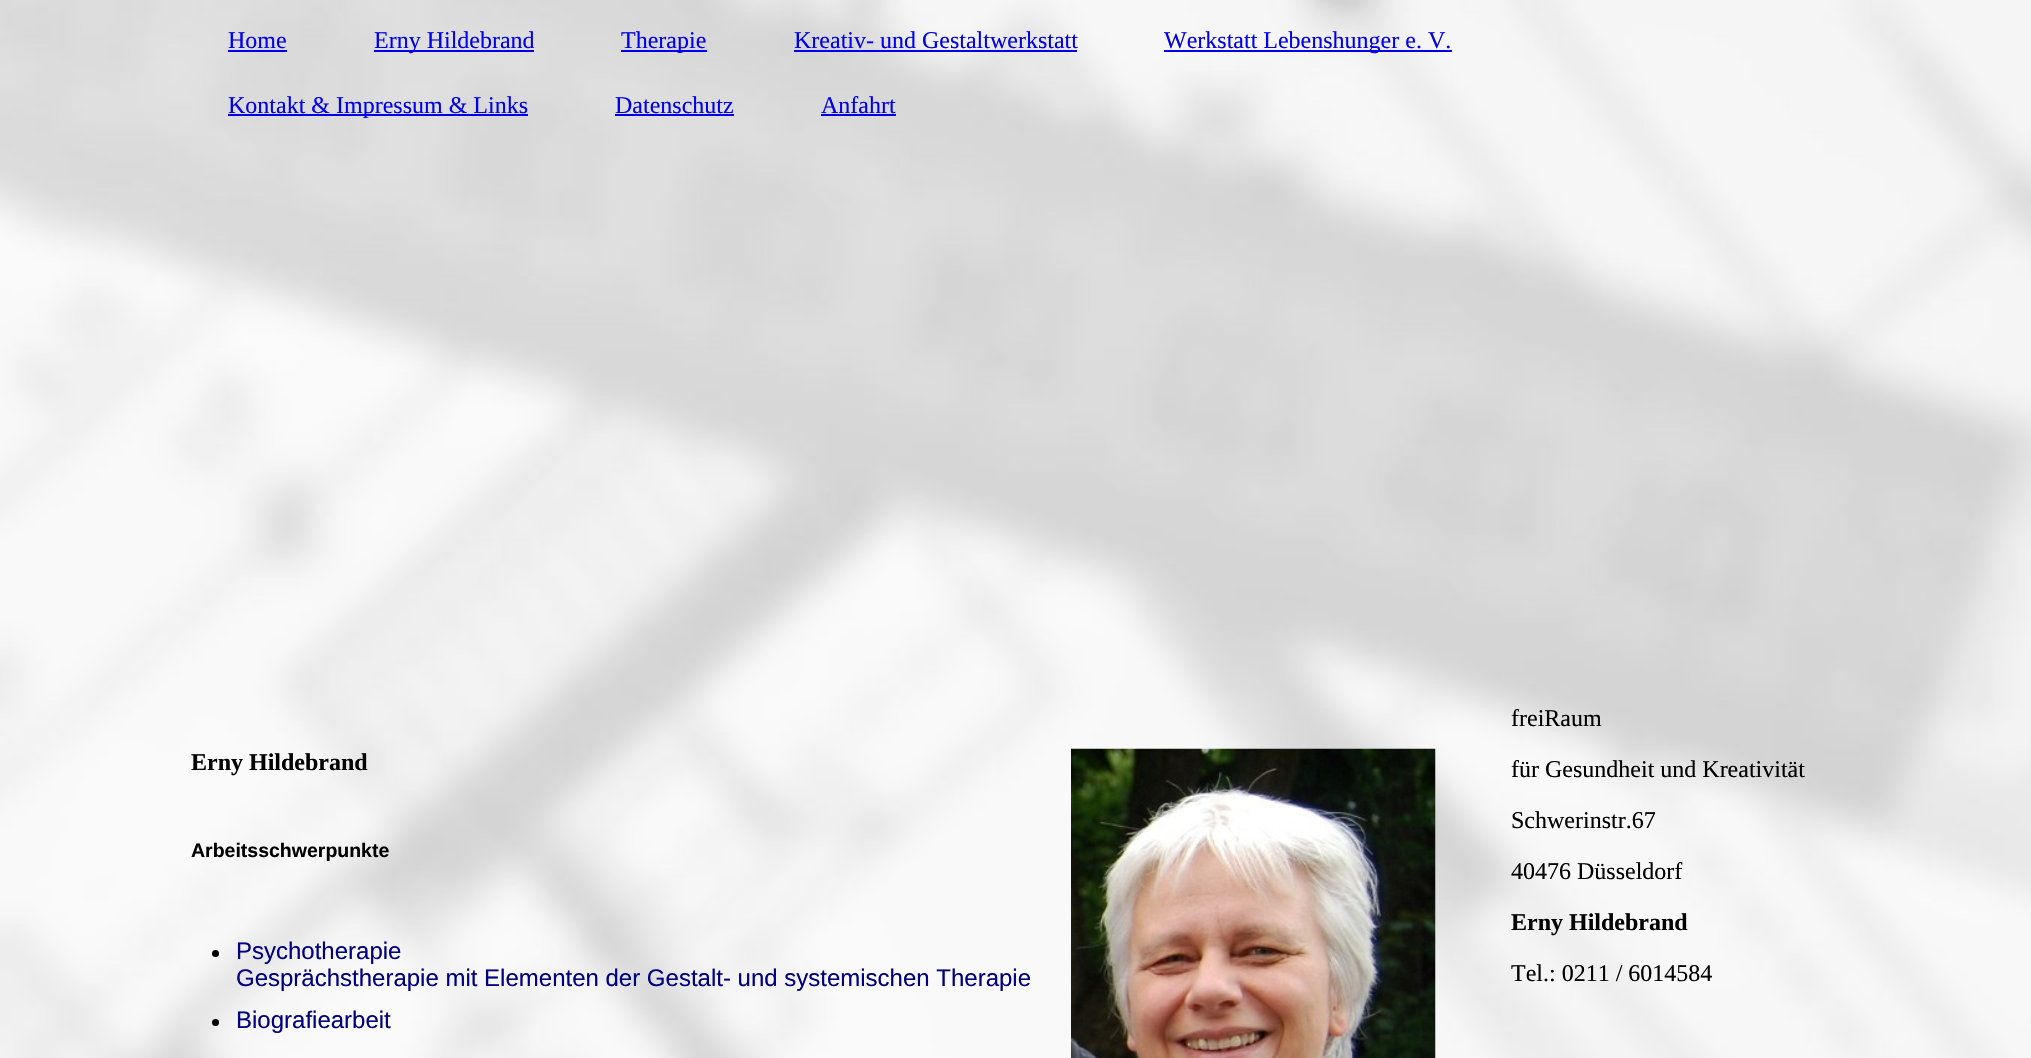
void draw(SkCanvas* canvas) {
	SkPaint paint;
	paint.setAntiAlias(true);
	canvas->clear(0xffffffff);
	canvas->drawImageRect(SkImages::DeferredFromEncodedData(SkData::MakeFromFileName("img1.png")), SkRect::MakeXYWH(0, 0, 2031, 1058), SkSamplingOptions());
	SkFont f1(fontMgr->matchFamilyStyle("Liberation Serif", SkFontStyle::Normal()), 24);
	f1.setSubpixel(true);
	paint.setColor(0xff0000ee);
	canvas->drawString("Home", 228, 48, f1, paint);
	canvas->drawRect(SkRect::MakeXYWH(228, 50, 59, 2), paint);
	canvas->drawRect(SkRect::MakeXYWH(374, 50, 160, 2), paint);
	canvas->drawString("Erny Hildebrand", 374, 48, f1, paint);
	canvas->drawRect(SkRect::MakeXYWH(621, 50, 86, 2), paint);
	canvas->drawString("Therapie", 621, 48, f1, paint);
	canvas->drawString("Kreativ- und Gestaltwerkstatt", 794, 48, f1, paint);
	canvas->drawRect(SkRect::MakeXYWH(794, 50, 283, 2), paint);
	canvas->drawRect(SkRect::MakeXYWH(1164, 50, 288, 2), paint);
	canvas->drawString("Werkstatt Lebenshunger e. V.", 1164, 48, f1, paint);
	canvas->drawRect(SkRect::MakeXYWH(228, 114, 300, 2), paint);
	canvas->drawString("Kontakt & Impressum & Links", 228, 113, f1, paint);
	canvas->drawString("Datenschutz", 615, 113, f1, paint);
	canvas->drawRect(SkRect::MakeXYWH(615, 114, 119, 2), paint);
	canvas->drawString("Anfahrt", 821, 113, f1, paint);
	canvas->drawRect(SkRect::MakeXYWH(821, 114, 75, 2), paint);
	SkFont f2(fontMgr->matchFamilyStyle("Liberation Serif", SkFontStyle::Bold()), 24);
	f2.setSubpixel(true);
	paint.setColor(0xff000000);
	canvas->drawString("Erny Hildebrand", 191, 770, f2, paint);
	canvas->drawImageRect(SkImages::DeferredFromEncodedData(SkData::MakeFromFileName("img2.png")), SkRect::MakeXYWH(1071, 748, 365, 310), SkSamplingOptions());
	SkFont f3(fontMgr->matchFamilyStyle("Liberation Sans", SkFontStyle::Bold()), 19.5);
	f3.setSubpixel(true);
	canvas->drawString("Arbeitsschwerpunkte", 191, 857, f3, paint);
	canvas->drawCircle(215.5, 953.5, 3.5, paint);
	SkFont f4(fontMgr->matchFamilyStyle("Liberation Sans", SkFontStyle::Normal()), 24);
	f4.setSubpixel(true);
	paint.setColor(0xff000080);
	canvas->drawString("Psychotherapie", 236, 959, f4, paint);
	canvas->drawString("Gesprächstherapie mit Elementen der Gestalt- und systemischen Therapie", 236, 986, f4, paint);
	paint.setColor(0xff000000);
	canvas->drawCircle(215.5, 1022.5, 3.5, paint);
	paint.setColor(0xff000080);
	canvas->drawString("Biografiearbeit", 236, 1028, f4, paint);
	paint.setColor(0xff000000);
	canvas->drawString("freiRaum", 1511, 726, f1, paint);
	canvas->drawString("für Gesundheit und Kreativität", 1511, 777, f1, paint);
	canvas->drawString("Schwerinstr.67", 1511, 828, f1, paint);
	canvas->drawString("40476 Düsseldorf", 1511, 879, f1, paint);
	canvas->drawString("Erny Hildebrand", 1511, 930, f2, paint);
	canvas->drawString("Tel.: 0211 / 6014584", 1511, 981, f1, paint);
}
